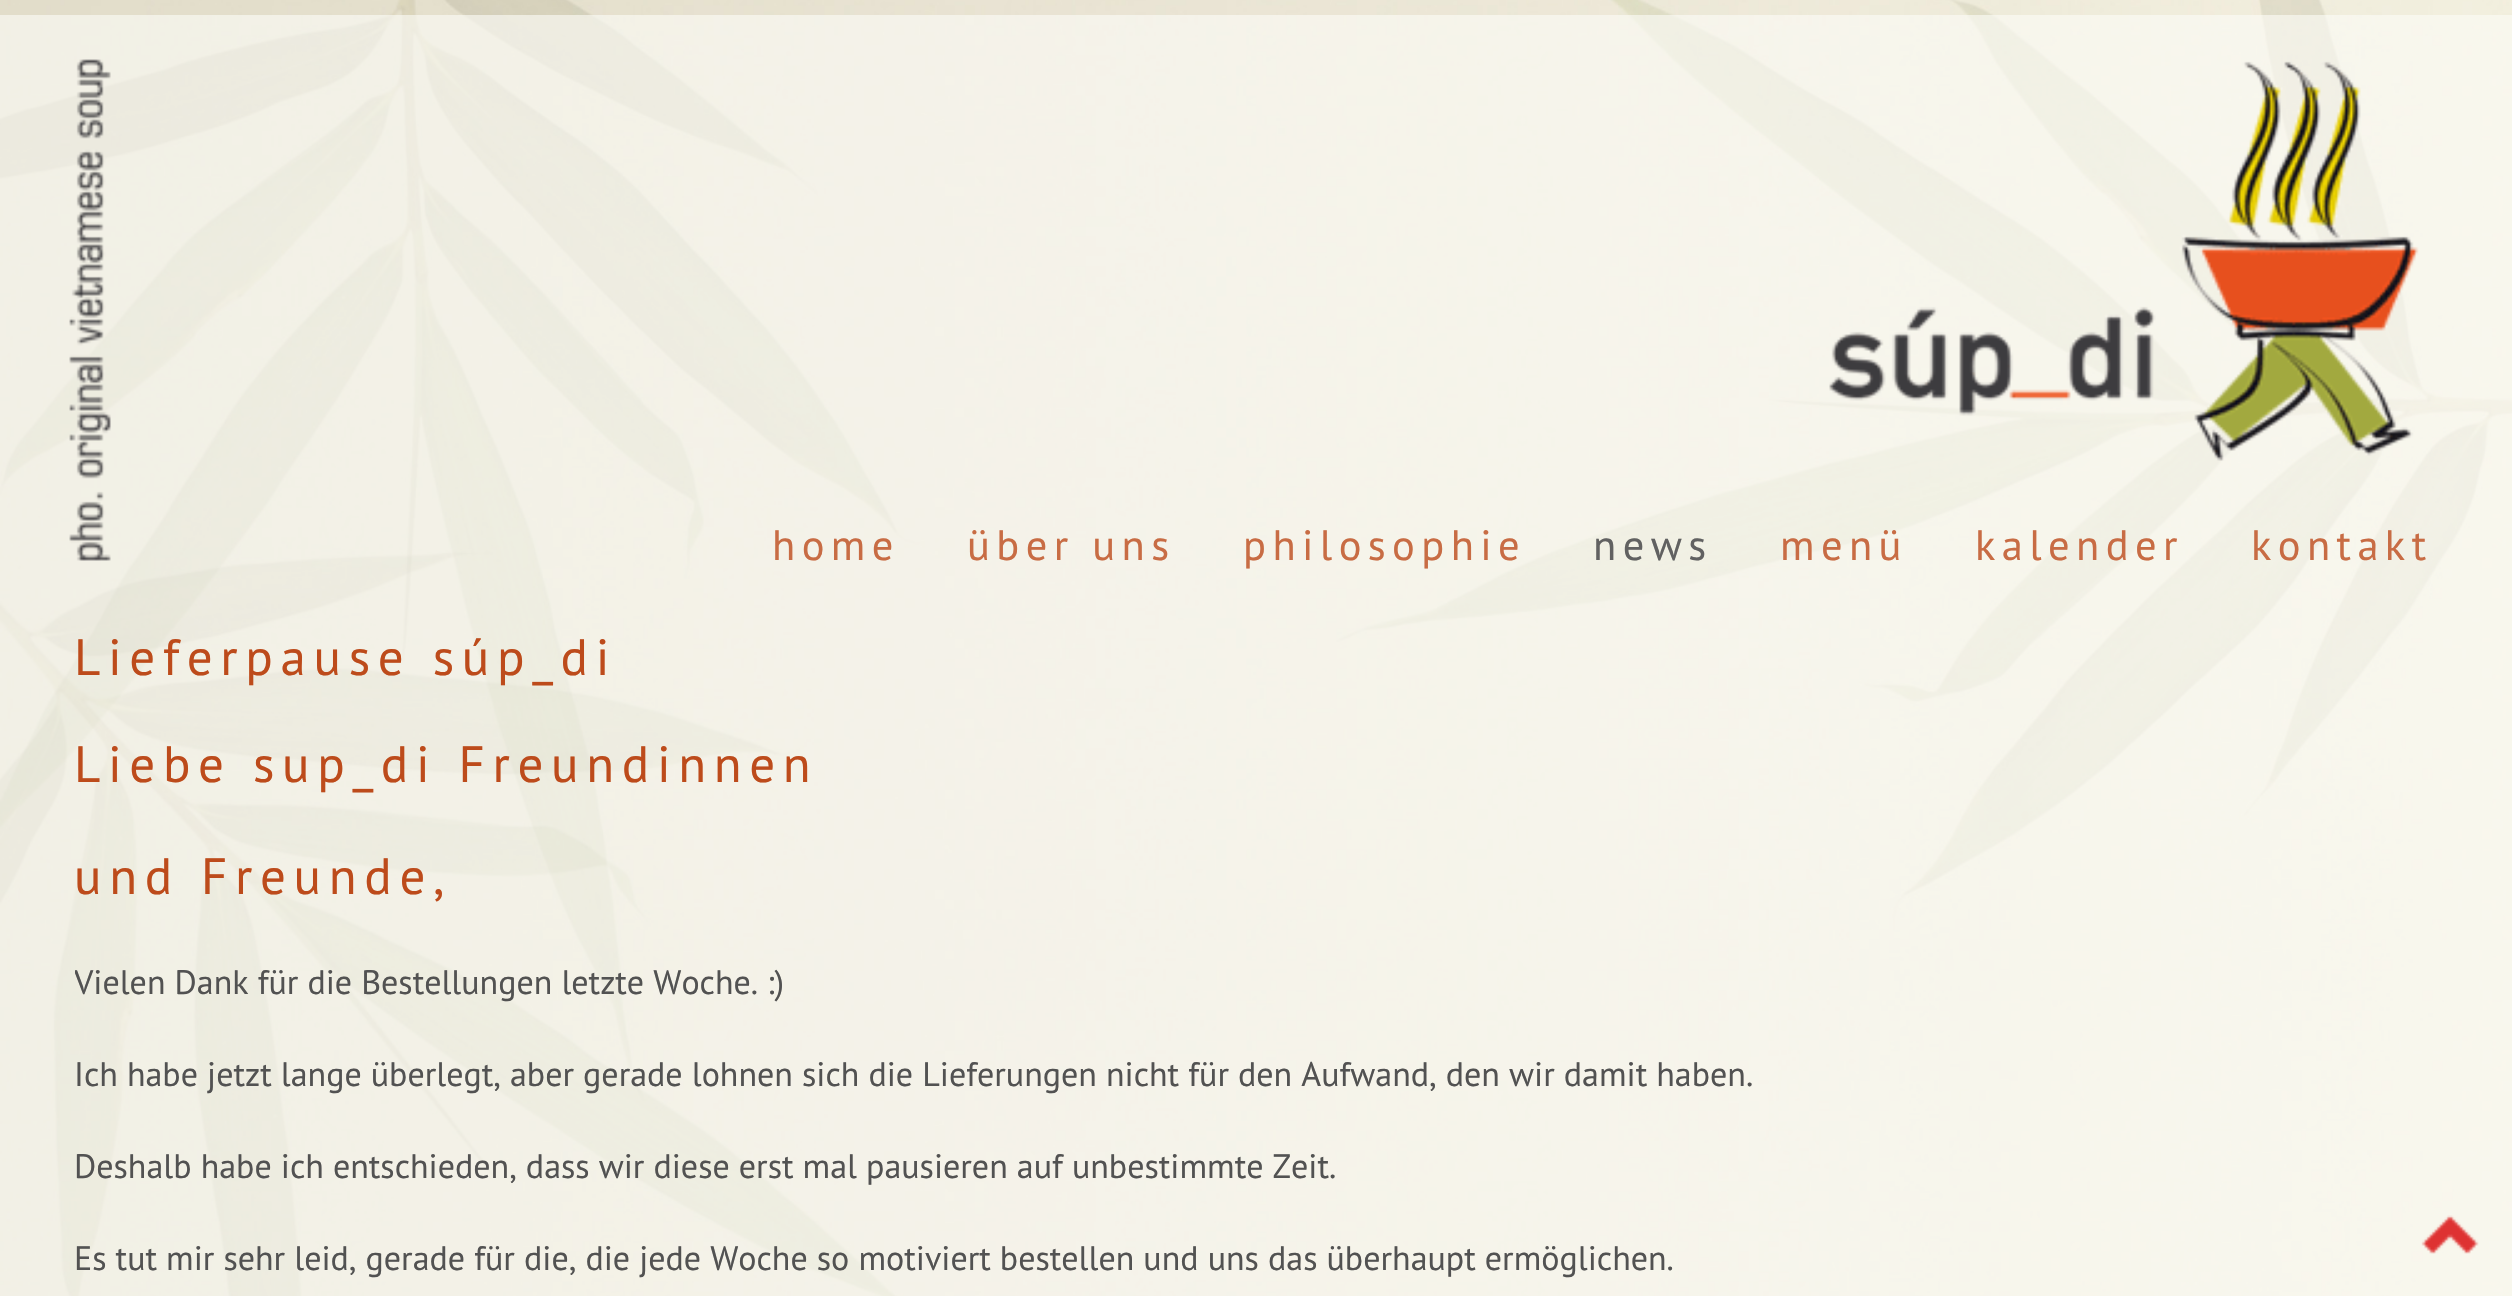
void draw(SkCanvas* canvas) {
	SkPaint paint;
	paint.setAntiAlias(true);
	auto spacedText = [&](const char* s, float x, float y, const SkFont& font, const SkPaint& ink, float letter, float word) {
		std::vector<SkGlyphID> glyphs(font.countText(s, strlen(s), SkTextEncoding::kUTF8));
		std::vector<float> xs(glyphs.size());
		font.textToGlyphs(s, strlen(s), SkTextEncoding::kUTF8, glyphs);
		font.getXPos(glyphs, xs, x);
		float extra = 0;
		for (size_t i = 0; i < glyphs.size(); i++) {
			xs[i] += extra;
			extra += letter + word * (glyphs[i] == font.unicharToGlyph(' '));
		}
		canvas->drawTextBlob(SkTextBlob::MakeFromPosHGlyphs(glyphs, xs, y, font), 0, 0, ink);
	};
	canvas->clear(0xffffffff);
	canvas->drawImageRect(SkImages::DeferredFromEncodedData(SkData::MakeFromFileName("img1.png")), SkRect::MakeXYWH(0, 0, 2512, 1296), SkSamplingOptions());
	canvas->drawImageRect(SkImages::DeferredFromEncodedData(SkData::MakeFromFileName("img2.png")), SkRect::MakeXYWH(69, 59, 42, 502), SkSamplingOptions());
	canvas->drawImageRect(SkImages::DeferredFromEncodedData(SkData::MakeFromFileName("img3.png")), SkRect::MakeXYWH(1829, 61, 590, 400), SkSamplingOptions());
	SkFont f1(fontMgr->matchFamilyStyle("PT Sans", SkFontStyle::Normal()), 42.5);
	f1.setSubpixel(true);
	paint.setColor(0xffc86c44);
	spacedText("home", 772, 560, f1, paint, 6.4, 0);
	spacedText("über uns", 967, 560, f1, paint, 6.4, 0);
	spacedText("philosophie", 1243, 560, f1, paint, 6.4, 0);
	paint.setColor(0xff616161);
	spacedText("news", 1593, 560, f1, paint, 6.4, 0);
	paint.setColor(0xffc86c44);
	spacedText("menü", 1780, 560, f1, paint, 6.4, 0);
	spacedText("kalender", 1975, 560, f1, paint, 6.4, 0);
	spacedText("kontakt", 2251, 560, f1, paint, 6.4, 0);
	SkFont f2(fontMgr->matchFamilyStyle("PT Sans", SkFontStyle::Normal()), 51);
	f2.setSubpixel(true);
	paint.setColor(0xffbd4b1b);
	spacedText("Lieferpause súp_di", 74, 675, f2, paint, 7.65, 0);
	spacedText("Liebe sup_di Freundinnen", 74, 782, f2, paint, 7.65, 0);
	spacedText("und Freunde,", 74, 894, f2, paint, 7.65, 0);
	canvas->save();
	canvas->clipRect(SkRect::MakeXYWH(75, 630, 2363, 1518));
	SkFont f3(fontMgr->matchFamilyStyle("PT Sans", SkFontStyle::Normal()), 34);
	f3.setSubpixel(true);
	paint.setColor(0xff525252);
	canvas->drawString("Vielen Dank für die Bestellungen letzte Woche.", 74, 994, f3, paint);
	canvas->restore();
	canvas->drawString(":)", 767, 994, f3, paint);
	canvas->drawString("Ich habe jetzt lange überlegt, aber gerade lohnen sich die Lieferungen nicht für den Aufwand, den wir damit haben.", 74, 1086, f3, paint);
	canvas->drawString("Deshalb habe ich entschieden, dass wir diese erst mal pausieren auf unbestimmte Zeit.", 74, 1178, f3, paint);
	canvas->drawString("Es tut mir sehr leid, gerade für die, die jede Woche so motiviert bestellen und uns das überhaupt ermöglichen.", 74, 1270, f3, paint);
	canvas->drawImageRect(SkImages::DeferredFromEncodedData(SkData::MakeFromFileName("img4.png")), SkRect::MakeXYWH(2421, 1215, 58, 39), SkSamplingOptions());
}
